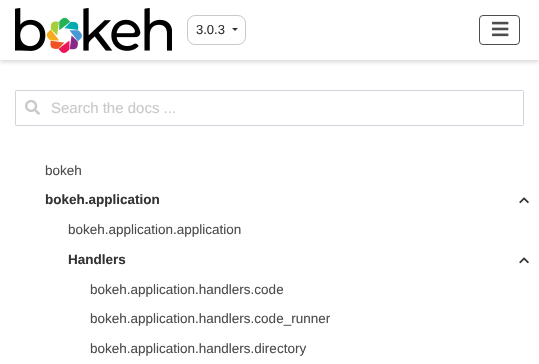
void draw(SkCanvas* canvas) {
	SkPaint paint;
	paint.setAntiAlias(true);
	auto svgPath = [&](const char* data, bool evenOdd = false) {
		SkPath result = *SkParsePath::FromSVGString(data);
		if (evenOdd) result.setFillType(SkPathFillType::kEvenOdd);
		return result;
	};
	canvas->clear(0xffffffff);
	canvas->save();
	canvas->clipRect(SkRect::MakeXYWH(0, 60, 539, 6));
	paint.setColor(0xffd8d8d8);
	paint.setMaskFilter(SkMaskFilter::MakeBlur(kNormal_SkBlurStyle, 2));
	canvas->drawRect(SkRect::MakeXYWH(0, 2, 539, 60), paint);
	paint.setMaskFilter(nullptr);
	canvas->restore();
	canvas->drawImageRect(SkImages::DeferredFromEncodedData(SkData::MakeFromFileName("img1.png")), SkRect::MakeXYWH(15, 8, 157, 45), SkSamplingOptions());
	paint.setStroke(true);
	paint.setStrokeWidth(1);
	paint.setColor(0xffc9c9c9);
	canvas->drawRoundRect(SkRect::MakeXYWH(187.5, 15.5, 58, 29), 7.5, 7.5, paint);
	SkFont f1(fontMgr->matchFamilyStyle("Liberation Sans", SkFontStyle::Normal()), 13);
	f1.setSubpixel(true);
	paint.setStroke(false);
	paint.setColor(0xff333333);
	canvas->drawString("3.0.3", 196, 34, f1, paint);
	canvas->drawPath(svgPath("M232 28H238L235 31Z"), paint);
	paint.setStroke(true);
	paint.setColor(0xff4d4d4d);
	canvas->drawRoundRect(SkRect::MakeXYWH(479.5, 15.5, 40, 29), 3.5, 3.5, paint);
	canvas->drawImageRect(SkImages::DeferredFromEncodedData(SkData::MakeFromFileName("img2.png")), SkRect::MakeXYWH(492, 21, 17, 16), SkSamplingOptions());
	paint.setColor(0xffced4da);
	canvas->drawRoundRect(SkRect::MakeXYWH(15.5, 90.5, 508, 35), 1, 1, paint);
	canvas->drawImageRect(SkImages::DeferredFromEncodedData(SkData::MakeFromFileName("img3.png")), SkRect::MakeXYWH(25, 99, 15, 16), SkSamplingOptions());
	SkFont f2(fontMgr->matchFamilyStyle("Liberation Sans", SkFontStyle::Normal()), 15);
	f2.setSubpixel(true);
	paint.setStroke(false);
	paint.setColor(0xffc9c9c9);
	canvas->drawString("Search the docs ...", 51, 113, f2, paint);
	SkFont f3(fontMgr->matchFamilyStyle("Liberation Sans", SkFontStyle::Normal()), 13.5);
	f3.setSubpixel(true);
	paint.setColor(0xff4d4d4d);
	canvas->drawString("bokeh", 45, 175, f3, paint);
	SkFont f4(fontMgr->matchFamilyStyle("Liberation Sans", SkFontStyle::Bold()), 13.5);
	f4.setSubpixel(true);
	paint.setColor(0xff333333);
	canvas->drawString("bokeh.application", 45, 204, f4, paint);
	canvas->drawImageRect(SkImages::DeferredFromEncodedData(SkData::MakeFromFileName("img4.png")), SkRect::MakeXYWH(519, 197, 10, 7), SkSamplingOptions());
	paint.setColor(0xff4d4d4d);
	canvas->drawString("bokeh.application.application", 68, 234, f3, paint);
	paint.setColor(0xff333333);
	canvas->drawString("Handlers", 68, 264, f4, paint);
	canvas->drawImageRect(SkImages::DeferredFromEncodedData(SkData::MakeFromFileName("img5.png")), SkRect::MakeXYWH(519, 257, 10, 7), SkSamplingOptions());
	paint.setColor(0xff4d4d4d);
	canvas->drawString("bokeh.application.handlers.code", 90, 294, f3, paint);
	canvas->drawString("bokeh.application.handlers.code_runner", 90, 323, f3, paint);
	canvas->drawString("bokeh.application.handlers.directory", 90, 353, f3, paint);
}
